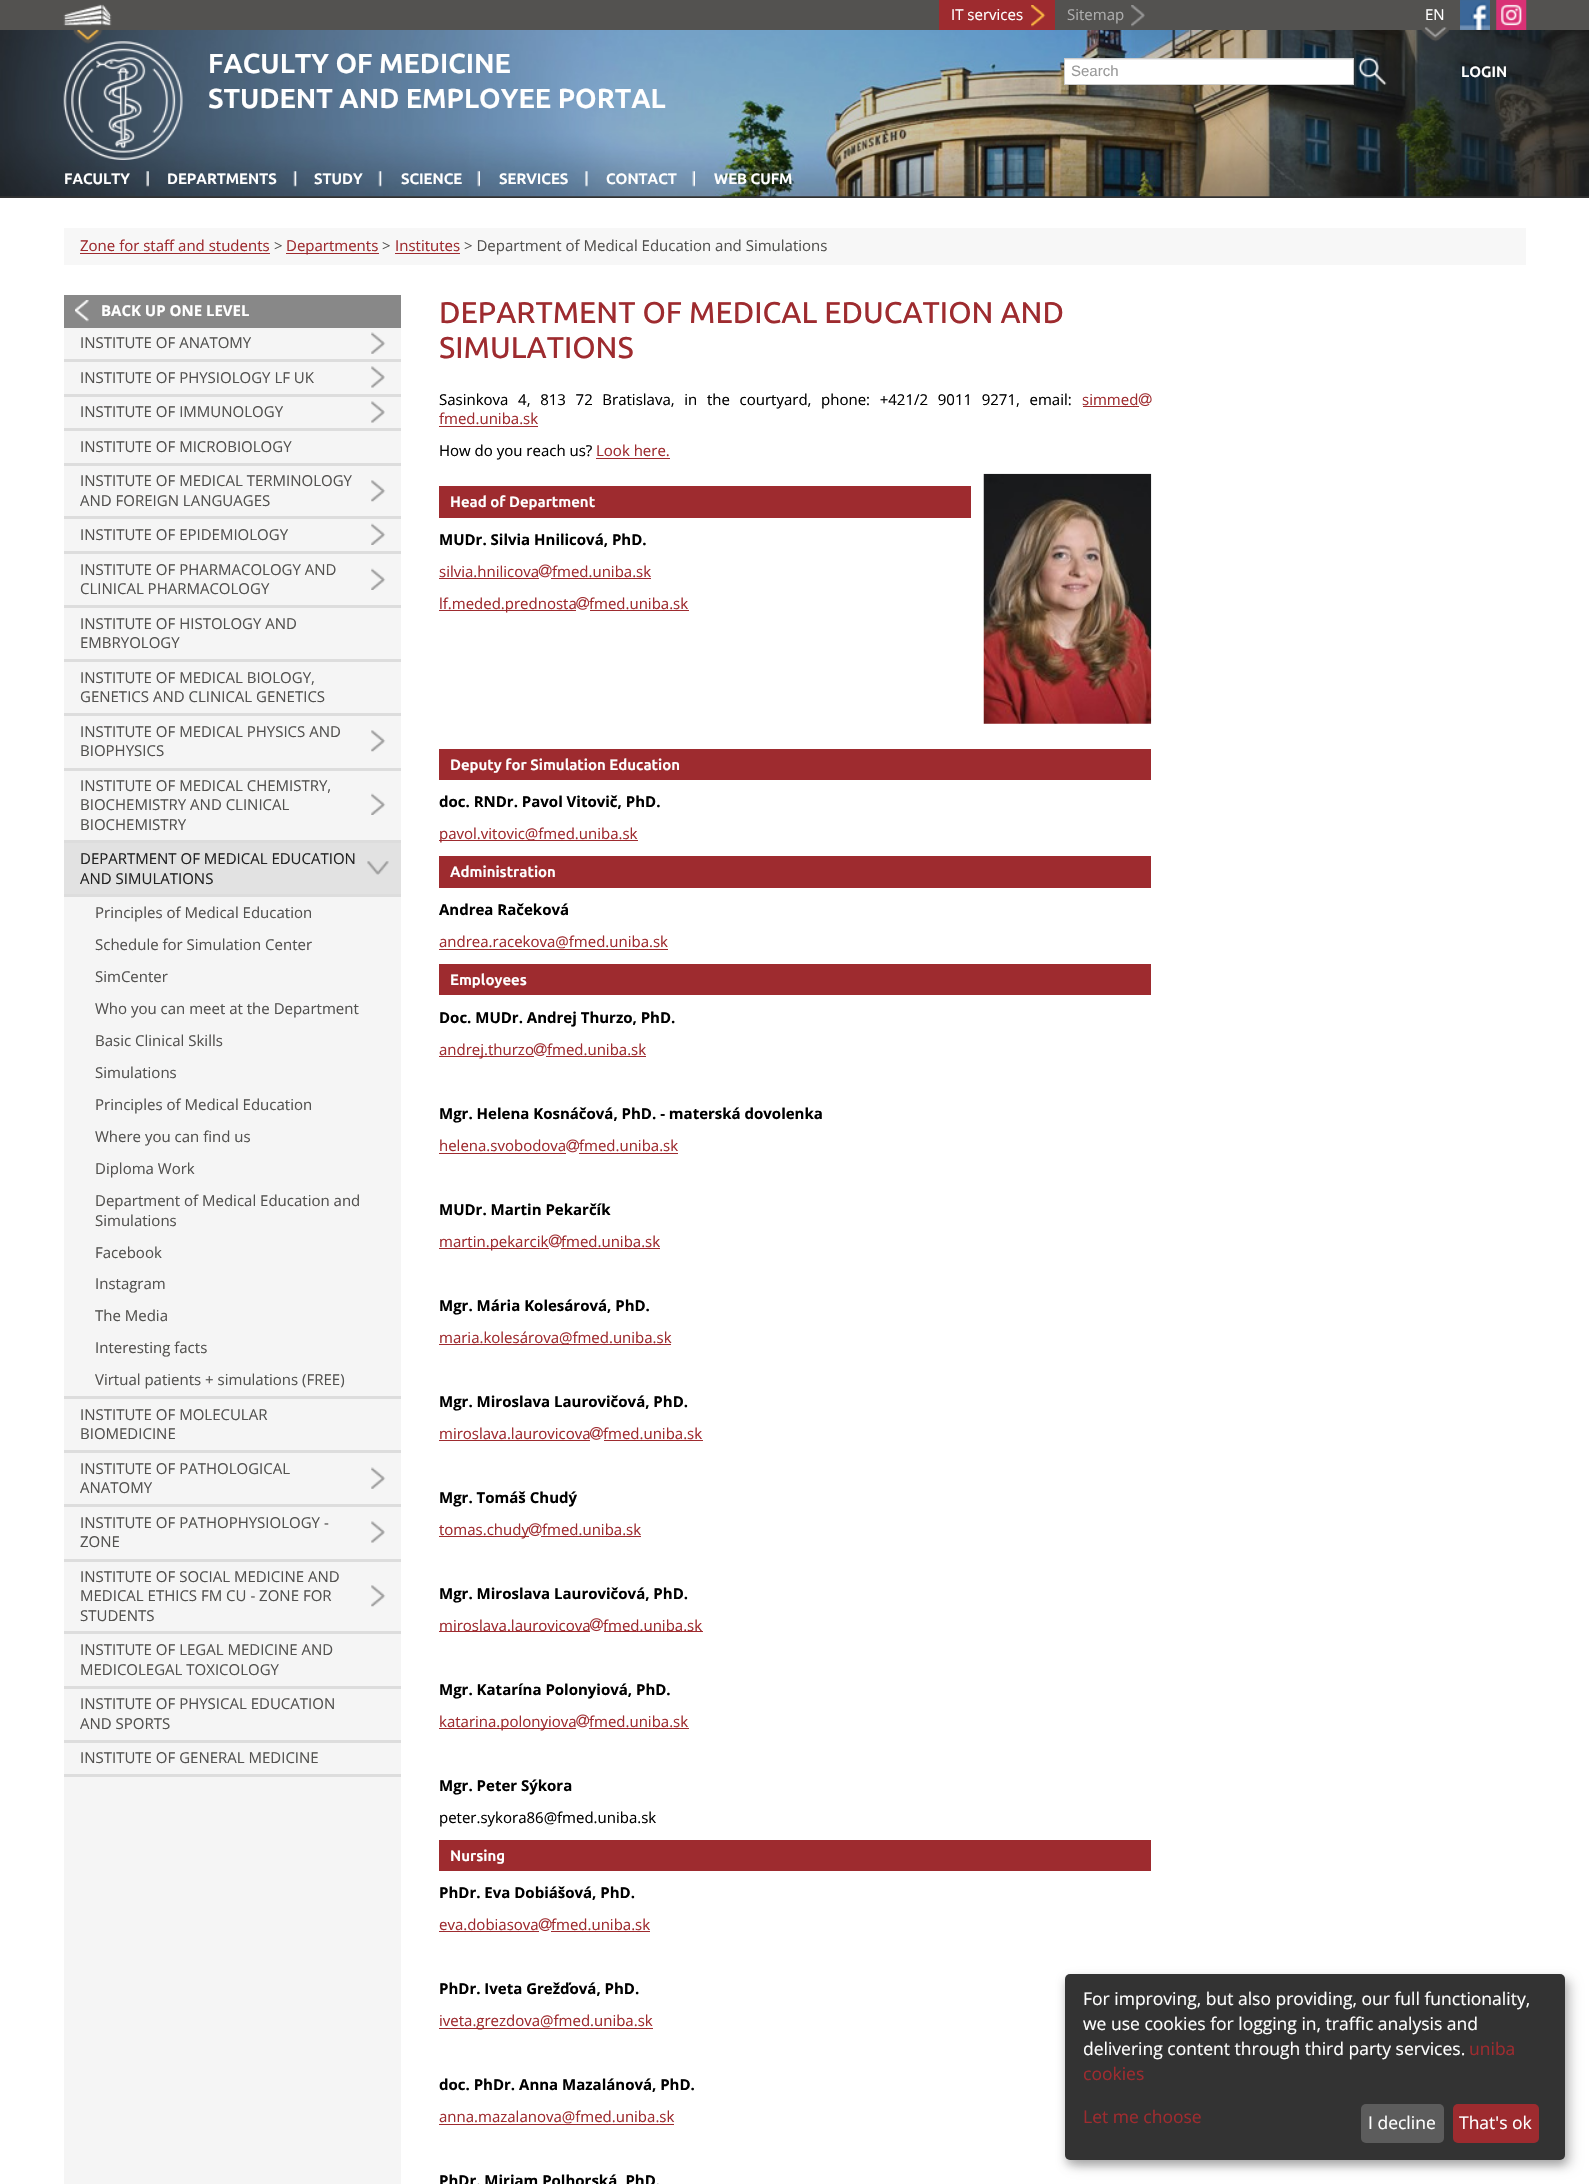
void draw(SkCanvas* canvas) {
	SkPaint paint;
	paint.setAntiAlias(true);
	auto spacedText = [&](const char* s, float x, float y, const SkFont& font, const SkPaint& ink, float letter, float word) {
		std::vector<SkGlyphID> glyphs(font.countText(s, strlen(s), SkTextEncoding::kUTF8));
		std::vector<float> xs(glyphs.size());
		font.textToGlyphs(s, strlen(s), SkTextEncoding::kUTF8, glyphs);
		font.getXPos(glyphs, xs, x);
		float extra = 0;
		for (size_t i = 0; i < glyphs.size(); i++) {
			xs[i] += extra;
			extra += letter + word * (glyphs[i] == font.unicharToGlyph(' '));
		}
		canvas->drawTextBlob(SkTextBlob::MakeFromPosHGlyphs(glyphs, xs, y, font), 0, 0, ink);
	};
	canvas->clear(0xffffffff);
	paint.setColor(0xff535250);
	canvas->drawRect(SkRect::MakeXYWH(0, 0, 1589, 30), paint);
	paint.setColor(0xff323232);
	canvas->drawRect(SkRect::MakeXYWH(0, 196, 1589, 2), paint);
	canvas->drawImageRect(SkImages::DeferredFromEncodedData(SkData::MakeFromFileName("img7.png")), SkRect::MakeXYWH(0, 30, 1589, 167), SkSamplingOptions());
	canvas->drawImageRect(SkImages::DeferredFromEncodedData(SkData::MakeFromFileName("img8.png")), SkRect::MakeXYWH(63, 41, 120, 119), SkSamplingOptions());
	canvas->drawImageRect(SkImages::DeferredFromEncodedData(SkData::MakeFromFileName("img1.png")), SkRect::MakeXYWH(63, 4, 49, 40), SkSamplingOptions());
	paint.setColor(0xff9e2b2f);
	canvas->drawRect(SkRect::MakeXYWH(939, 0, 116, 30), paint);
	canvas->drawImageRect(SkImages::DeferredFromEncodedData(SkData::MakeFromFileName("img2.png")), SkRect::MakeXYWH(1031, 5, 15, 22), SkSamplingOptions());
	SkFont f1(fontMgr->matchFamilyStyle("Open Sans", SkFontStyle::Normal()), 15);
	f1.setSubpixel(true);
	paint.setColor(0xffffffff);
	canvas->drawString("IT services", 951, 20, f1, paint);
	canvas->drawImageRect(SkImages::DeferredFromEncodedData(SkData::MakeFromFileName("img3.png")), SkRect::MakeXYWH(1131, 5, 14, 22), SkSamplingOptions());
	paint.setColor(0xffadadad);
	canvas->drawString("Sitemap", 1067, 20, f1, paint);
	canvas->drawImageRect(SkImages::DeferredFromEncodedData(SkData::MakeFromFileName("img4.png")), SkRect::MakeXYWH(1421, 27, 28, 15), SkSamplingOptions());
	paint.setColor(0xffffffff);
	canvas->drawString("EN", 1425, 20, f1, paint);
	canvas->drawImageRect(SkImages::DeferredFromEncodedData(SkData::MakeFromFileName("img5.png")), SkRect::MakeXYWH(1460, 0, 30, 30), SkSamplingOptions());
	canvas->drawImageRect(SkImages::DeferredFromEncodedData(SkData::MakeFromFileName("img6.png")), SkRect::MakeXYWH(1496, 0, 31, 30), SkSamplingOptions());
	SkFont f2(fontMgr->matchFamilyStyle("Ubuntu", SkFontStyle::Bold()), 27.5);
	f2.setSubpixel(true);
	canvas->drawString("FACULTY OF MEDICINE", 208, 73, f2, paint);
	canvas->drawString("STUDENT AND EMPLOYEE PORTAL", 208, 108, f2, paint);
	canvas->drawRect(SkRect::MakeXYWH(1065, 60, 288, 24), paint);
	paint.setColor(0xffececec);
	canvas->drawRect(SkRect::MakeXYWH(1065, 59, 288, 1), paint);
	paint.setStroke(true);
	paint.setStrokeWidth(1);
	paint.setColor(0xffcccccc);
	canvas->drawRect(SkRect::MakeXYWH(1064.5, 58.5, 289, 26), paint);
	SkFont f3(fontMgr->matchFamilyStyle("Liberation Sans", SkFontStyle::Normal()), 15);
	f3.setSubpixel(true);
	paint.setStroke(false);
	paint.setColor(0xff999999);
	canvas->drawString("Search", 1071, 76, f3, paint);
	canvas->drawImageRect(SkImages::DeferredFromEncodedData(SkData::MakeFromFileName("img9.png")), SkRect::MakeXYWH(1358, 57, 29, 28), SkSamplingOptions());
	SkFont f4(fontMgr->matchFamilyStyle("Ubuntu", SkFontStyle::Bold()), 15);
	f4.setSubpixel(true);
	paint.setColor(0xffffffff);
	canvas->drawString("LOGIN", 1461, 77, f4, paint);
	canvas->drawString("FACULTY", 64, 184, f4, paint);
	canvas->drawImageRect(SkImages::DeferredFromEncodedData(SkData::MakeFromFileName("img10.png")), SkRect::MakeXYWH(146, 171, 3, 16), SkSamplingOptions());
	canvas->drawString("DEPARTMENTS", 167, 184, f4, paint);
	canvas->drawImageRect(SkImages::DeferredFromEncodedData(SkData::MakeFromFileName("img11.png")), SkRect::MakeXYWH(293, 171, 4, 16), SkSamplingOptions());
	canvas->drawString("STUDY", 314, 184, f4, paint);
	canvas->drawImageRect(SkImages::DeferredFromEncodedData(SkData::MakeFromFileName("img12.png")), SkRect::MakeXYWH(378, 171, 4, 16), SkSamplingOptions());
	canvas->drawString("SCIENCE", 401, 184, f4, paint);
	canvas->drawImageRect(SkImages::DeferredFromEncodedData(SkData::MakeFromFileName("img13.png")), SkRect::MakeXYWH(477, 171, 3, 16), SkSamplingOptions());
	canvas->drawString("SERVICES", 499, 184, f4, paint);
	canvas->drawImageRect(SkImages::DeferredFromEncodedData(SkData::MakeFromFileName("img14.png")), SkRect::MakeXYWH(585, 171, 3, 16), SkSamplingOptions());
	canvas->drawString("CONTACT", 606, 184, f4, paint);
	canvas->drawImageRect(SkImages::DeferredFromEncodedData(SkData::MakeFromFileName("img15.png")), SkRect::MakeXYWH(692, 171, 3, 16), SkSamplingOptions());
	canvas->drawString("WEB CUFM", 714, 184, f4, paint);
	paint.setColor(0xfff7f7f7);
	canvas->drawRect(SkRect::MakeXYWH(64, 228, 1462, 37), paint);
	paint.setColor(0xff9e2b2f);
	canvas->drawString("Zone for staff and students", 80, 251, f1, paint);
	canvas->drawRect(SkRect::MakeXYWH(80, 253, 190, 1), paint);
	paint.setColor(0xff535250);
	canvas->drawString(">", 274, 251, f1, paint);
	paint.setColor(0xff9e2b2f);
	canvas->drawRect(SkRect::MakeXYWH(286, 253, 93, 1), paint);
	canvas->drawString("Departments", 286, 251, f1, paint);
	paint.setColor(0xff535250);
	canvas->drawString(">", 382, 251, f1, paint);
	paint.setColor(0xff9e2b2f);
	canvas->drawString("Institutes", 395, 251, f1, paint);
	canvas->drawRect(SkRect::MakeXYWH(395, 253, 65, 1), paint);
	paint.setColor(0xff535250);
	canvas->drawString("> Department of Medical Education and Simulations", 464, 251, f1, paint);
	paint.setColor(0xfff5f5f5);
	canvas->drawRect(SkRect::MakeXYWH(64, 328, 337, 1856), paint);
	paint.setColor(0xff888888);
	canvas->drawRect(SkRect::MakeXYWH(64, 295, 337, 33), paint);
	canvas->drawImageRect(SkImages::DeferredFromEncodedData(SkData::MakeFromFileName("img16.png")), SkRect::MakeXYWH(75, 300, 14, 22), SkSamplingOptions());
	SkFont f5(fontMgr->matchFamilyStyle("Open Sans", SkFontStyle::Bold()), 15);
	f5.setSubpixel(true);
	paint.setColor(0xffffffff);
	canvas->drawString("BACK UP ONE LEVEL", 101, 316, f5, paint);
	paint.setColor(0xffdddddd);
	canvas->drawRect(SkRect::MakeXYWH(64, 359, 337, 3), paint);
	canvas->drawImageRect(SkImages::DeferredFromEncodedData(SkData::MakeFromFileName("img17.png")), SkRect::MakeXYWH(371, 332, 15, 22), SkSamplingOptions());
	paint.setColor(0xff535250);
	canvas->drawString("INSTITUTE OF ANATOMY", 80, 348, f1, paint);
	paint.setColor(0xffdddddd);
	canvas->drawRect(SkRect::MakeXYWH(64, 394, 337, 3), paint);
	canvas->drawImageRect(SkImages::DeferredFromEncodedData(SkData::MakeFromFileName("img18.png")), SkRect::MakeXYWH(371, 366, 14, 22), SkSamplingOptions());
	paint.setColor(0xff535250);
	canvas->drawString("INSTITUTE OF PHYSIOLOGY LF UK", 80, 383, f1, paint);
	paint.setColor(0xffdddddd);
	canvas->drawRect(SkRect::MakeXYWH(64, 428, 337, 3), paint);
	canvas->drawImageRect(SkImages::DeferredFromEncodedData(SkData::MakeFromFileName("img18.png")), SkRect::MakeXYWH(371, 401, 14, 22), SkSamplingOptions());
	paint.setColor(0xff535250);
	canvas->drawString("INSTITUTE OF IMMUNOLOGY", 80, 417, f1, paint);
	paint.setColor(0xffdddddd);
	canvas->drawRect(SkRect::MakeXYWH(64, 463, 337, 3), paint);
	paint.setColor(0xff535250);
	canvas->drawString("INSTITUTE OF MICROBIOLOGY", 80, 452, f1, paint);
	paint.setColor(0xffdddddd);
	canvas->drawRect(SkRect::MakeXYWH(64, 516, 337, 3), paint);
	canvas->drawImageRect(SkImages::DeferredFromEncodedData(SkData::MakeFromFileName("img19.png")), SkRect::MakeXYWH(371, 480, 15, 22), SkSamplingOptions());
	paint.setColor(0xff535250);
	canvas->drawString("INSTITUTE OF MEDICAL TERMINOLOGY", 80, 486, f1, paint);
	canvas->drawString("AND FOREIGN LANGUAGES", 80, 506, f1, paint);
	paint.setColor(0xffdddddd);
	canvas->drawRect(SkRect::MakeXYWH(64, 551, 337, 3), paint);
	canvas->drawImageRect(SkImages::DeferredFromEncodedData(SkData::MakeFromFileName("img20.png")), SkRect::MakeXYWH(371, 523, 15, 22), SkSamplingOptions());
	paint.setColor(0xff535250);
	canvas->drawString("INSTITUTE OF EPIDEMIOLOGY", 80, 540, f1, paint);
	paint.setColor(0xffdddddd);
	canvas->drawRect(SkRect::MakeXYWH(64, 605, 337, 3), paint);
	canvas->drawImageRect(SkImages::DeferredFromEncodedData(SkData::MakeFromFileName("img20.png")), SkRect::MakeXYWH(371, 568, 15, 22), SkSamplingOptions());
	paint.setColor(0xff535250);
	canvas->drawString("INSTITUTE OF PHARMACOLOGY AND", 80, 575, f1, paint);
	canvas->drawString("CLINICAL PHARMACOLOGY", 80, 594, f1, paint);
	paint.setColor(0xffdddddd);
	canvas->drawRect(SkRect::MakeXYWH(64, 659, 337, 3), paint);
	paint.setColor(0xff535250);
	canvas->drawString("INSTITUTE OF HISTOLOGY AND", 80, 629, f1, paint);
	canvas->drawString("EMBRYOLOGY", 80, 648, f1, paint);
	paint.setColor(0xffdddddd);
	canvas->drawRect(SkRect::MakeXYWH(64, 713, 337, 3), paint);
	paint.setColor(0xff535250);
	canvas->drawString("INSTITUTE OF MEDICAL BIOLOGY,", 80, 683, f1, paint);
	canvas->drawString("GENETICS AND CLINICAL GENETICS", 80, 702, f1, paint);
	paint.setColor(0xffdddddd);
	canvas->drawRect(SkRect::MakeXYWH(64, 768, 337, 3), paint);
	canvas->drawImageRect(SkImages::DeferredFromEncodedData(SkData::MakeFromFileName("img19.png")), SkRect::MakeXYWH(371, 730, 15, 22), SkSamplingOptions());
	paint.setColor(0xff535250);
	canvas->drawString("INSTITUTE OF MEDICAL PHYSICS AND", 80, 737, f1, paint);
	canvas->drawString("BIOPHYSICS", 80, 756, f1, paint);
	paint.setColor(0xffdddddd);
	canvas->drawRect(SkRect::MakeXYWH(64, 840, 337, 3), paint);
	canvas->drawImageRect(SkImages::DeferredFromEncodedData(SkData::MakeFromFileName("img20.png")), SkRect::MakeXYWH(371, 793, 15, 22), SkSamplingOptions());
	paint.setColor(0xff535250);
	canvas->drawString("INSTITUTE OF MEDICAL CHEMISTRY,", 80, 791, f1, paint);
	canvas->drawString("BIOCHEMISTRY AND CLINICAL", 80, 810, f1, paint);
	canvas->drawString("BIOCHEMISTRY", 80, 830, f1, paint);
	paint.setColor(0xffdddddd);
	canvas->drawRect(SkRect::MakeXYWH(64, 1396, 337, 3), paint);
	paint.setColor(0xffe2e2e2);
	canvas->drawRect(SkRect::MakeXYWH(64, 843, 337, 51), paint);
	canvas->drawImageRect(SkImages::DeferredFromEncodedData(SkData::MakeFromFileName("img21.png")), SkRect::MakeXYWH(367, 861, 22, 14), SkSamplingOptions());
	paint.setColor(0xff222222);
	canvas->drawString("DEPARTMENT OF MEDICAL EDUCATION", 80, 864, f1, paint);
	canvas->drawString("AND SIMULATIONS", 80, 884, f1, paint);
	paint.setColor(0xffdddddd);
	canvas->drawRect(SkRect::MakeXYWH(64, 894, 337, 3), paint);
	paint.setColor(0xff535250);
	canvas->drawString("Principles of Medical Education", 95, 918, f1, paint);
	canvas->drawString("Schedule for Simulation Center", 95, 950, f1, paint);
	canvas->drawString("SimCenter", 95, 982, f1, paint);
	canvas->drawString("Who you can meet at the Department", 95, 1014, f1, paint);
	canvas->drawString("Basic Clinical Skills", 95, 1046, f1, paint);
	canvas->drawString("Simulations", 95, 1078, f1, paint);
	canvas->drawString("Principles of Medical Education", 95, 1110, f1, paint);
	canvas->drawString("Where you can find us", 95, 1142, f1, paint);
	canvas->drawString("Diploma Work", 95, 1174, f1, paint);
	canvas->drawString("Department of Medical Education and", 95, 1206, f1, paint);
	canvas->drawString("Simulations", 95, 1226, f1, paint);
	canvas->drawString("Facebook", 95, 1258, f1, paint);
	canvas->drawString("Instagram", 95, 1289, f1, paint);
	canvas->drawString("The Media", 95, 1321, f1, paint);
	canvas->drawString("Interesting facts", 95, 1353, f1, paint);
	canvas->drawString("Virtual patients + simulations (FREE)", 95, 1385, f1, paint);
	paint.setColor(0xffdddddd);
	canvas->drawRect(SkRect::MakeXYWH(64, 1450, 337, 3), paint);
	paint.setColor(0xff535250);
	canvas->drawString("INSTITUTE OF MOLECULAR", 80, 1420, f1, paint);
	canvas->drawString("BIOMEDICINE", 80, 1439, f1, paint);
	paint.setColor(0xffdddddd);
	canvas->drawRect(SkRect::MakeXYWH(64, 1504, 337, 3), paint);
	canvas->drawImageRect(SkImages::DeferredFromEncodedData(SkData::MakeFromFileName("img17.png")), SkRect::MakeXYWH(371, 1467, 15, 22), SkSamplingOptions());
	paint.setColor(0xff535250);
	canvas->drawString("INSTITUTE OF PATHOLOGICAL", 80, 1474, f1, paint);
	canvas->drawString("ANATOMY", 80, 1493, f1, paint);
	paint.setColor(0xffdddddd);
	canvas->drawRect(SkRect::MakeXYWH(64, 1559, 337, 3), paint);
	canvas->drawImageRect(SkImages::DeferredFromEncodedData(SkData::MakeFromFileName("img18.png")), SkRect::MakeXYWH(371, 1521, 14, 22), SkSamplingOptions());
	paint.setColor(0xff535250);
	canvas->drawString("INSTITUTE OF PATHOPHYSIOLOGY -", 80, 1528, f1, paint);
	canvas->drawString("ZONE", 80, 1547, f1, paint);
	paint.setColor(0xffdddddd);
	canvas->drawRect(SkRect::MakeXYWH(64, 1631, 337, 3), paint);
	canvas->drawImageRect(SkImages::DeferredFromEncodedData(SkData::MakeFromFileName("img19.png")), SkRect::MakeXYWH(371, 1585, 15, 22), SkSamplingOptions());
	paint.setColor(0xff535250);
	canvas->drawString("INSTITUTE OF SOCIAL MEDICINE AND", 80, 1582, f1, paint);
	canvas->drawString("MEDICAL ETHICS FM CU - ZONE FOR", 80, 1601, f1, paint);
	canvas->drawString("STUDENTS", 80, 1621, f1, paint);
	paint.setColor(0xffdddddd);
	canvas->drawRect(SkRect::MakeXYWH(64, 1686, 337, 3), paint);
	paint.setColor(0xff535250);
	canvas->drawString("INSTITUTE OF LEGAL MEDICINE AND", 80, 1655, f1, paint);
	canvas->drawString("MEDICOLEGAL TOXICOLOGY", 80, 1675, f1, paint);
	paint.setColor(0xffdddddd);
	canvas->drawRect(SkRect::MakeXYWH(64, 1740, 337, 3), paint);
	paint.setColor(0xff535250);
	canvas->drawString("INSTITUTE OF PHYSICAL EDUCATION", 80, 1709, f1, paint);
	canvas->drawString("AND SPORTS", 80, 1729, f1, paint);
	paint.setColor(0xffdddddd);
	canvas->drawRect(SkRect::MakeXYWH(64, 1774, 337, 3), paint);
	paint.setColor(0xff535250);
	canvas->drawString("INSTITUTE OF GENERAL MEDICINE", 80, 1763, f1, paint);
	SkFont f6(fontMgr->matchFamilyStyle("Ubuntu", SkFontStyle(500, SkFontStyle::kNormal_Width, SkFontStyle::kUpright_Slant)), 30);
	f6.setSubpixel(true);
	paint.setColor(0xff9e2b2f);
	canvas->drawString("DEPARTMENT OF MEDICAL EDUCATION AND", 439, 323, f6, paint);
	canvas->drawString("SIMULATIONS", 439, 358, f6, paint);
	canvas->drawString("simmed", 1082, 405, f1, paint);
	canvas->drawRect(SkRect::MakeXYWH(1083, 406, 56, 1), paint);
	canvas->drawImageRect(SkImages::DeferredFromEncodedData(SkData::MakeFromFileName("img22.png")), SkRect::MakeXYWH(1138, 393, 14, 14), SkSamplingOptions());
	canvas->drawString("fmed.uniba.sk", 439, 424, f1, paint);
	canvas->drawRect(SkRect::MakeXYWH(439, 426, 99, 1), paint);
	paint.setColor(0xff000000);
	spacedText("Sasinkova 4, 813 72 Bratislava, in the courtyard, phone: +421/2 9011 9271, email:", 439, 405, f1, paint, 0, 5.75);
	canvas->drawString("How do you reach us?", 439, 456, f1, paint);
	paint.setColor(0xff9e2b2f);
	canvas->drawString("Look here.", 596, 456, f1, paint);
	canvas->drawRect(SkRect::MakeXYWH(596, 458, 74, 1), paint);
	canvas->drawRect(SkRect::MakeXYWH(439, 486, 532, 32), paint);
	paint.setColor(0xffffffff);
	canvas->drawString("Head of Department", 450, 507, f4, paint);
	paint.setColor(0xff000000);
	canvas->drawString("MUDr. Silvia Hnilicová, PhD.", 439, 545, f5, paint);
	paint.setColor(0xff9e2b2f);
	canvas->drawString("silvia.hnilicova", 439, 577, f1, paint);
	canvas->drawRect(SkRect::MakeXYWH(439, 578, 100, 1), paint);
	canvas->drawImageRect(SkImages::DeferredFromEncodedData(SkData::MakeFromFileName("img23.png")), SkRect::MakeXYWH(538, 564, 14, 14), SkSamplingOptions());
	canvas->drawString("fmed.uniba.sk", 552, 577, f1, paint);
	canvas->drawRect(SkRect::MakeXYWH(551, 578, 100, 1), paint);
	canvas->drawRect(SkRect::MakeXYWH(439, 610, 137, 1), paint);
	canvas->drawString("lf.meded.prednosta", 439, 609, f1, paint);
	canvas->drawImageRect(SkImages::DeferredFromEncodedData(SkData::MakeFromFileName("img24.png")), SkRect::MakeXYWH(576, 597, 14, 13), SkSamplingOptions());
	canvas->drawString("fmed.uniba.sk", 589, 609, f1, paint);
	canvas->drawRect(SkRect::MakeXYWH(590, 610, 99, 1), paint);
	canvas->drawImageRect(SkImages::DeferredFromEncodedData(SkData::MakeFromFileName("img25.png")), SkRect::MakeXYWH(983, 473, 169, 251), SkSamplingOptions());
	canvas->drawRect(SkRect::MakeXYWH(439, 749, 712, 31), paint);
	paint.setColor(0xffffffff);
	canvas->drawString("Deputy for Simulation Education", 450, 770, f4, paint);
	paint.setColor(0xff000000);
	canvas->drawString("doc. RNDr. Pavol Vitovič, PhD.", 439, 807, f5, paint);
	paint.setColor(0xff9e2b2f);
	canvas->drawRect(SkRect::MakeXYWH(439, 840, 199, 1), paint);
	canvas->drawString("pavol.vitovic@fmed.uniba.sk", 439, 839, f1, paint);
	canvas->drawRect(SkRect::MakeXYWH(439, 856, 712, 32), paint);
	paint.setColor(0xffffffff);
	canvas->drawString("Administration", 450, 877, f4, paint);
	paint.setColor(0xff000000);
	canvas->drawString("Andrea Račeková", 439, 915, f5, paint);
	paint.setColor(0xff9e2b2f);
	canvas->drawString("andrea.racekova@fmed.uniba.sk", 439, 947, f1, paint);
	canvas->drawRect(SkRect::MakeXYWH(439, 949, 229, 1), paint);
	canvas->drawRect(SkRect::MakeXYWH(439, 964, 712, 31), paint);
	paint.setColor(0xffffffff);
	canvas->drawString("Employees", 450, 985, f4, paint);
	paint.setColor(0xff000000);
	canvas->drawString("Doc. MUDr. Andrej Thurzo, PhD.", 439, 1023, f5, paint);
	paint.setColor(0xff9e2b2f);
	canvas->drawRect(SkRect::MakeXYWH(439, 1056, 95, 1), paint);
	canvas->drawString("andrej.thurzo", 439, 1055, f1, paint);
	canvas->drawImageRect(SkImages::DeferredFromEncodedData(SkData::MakeFromFileName("img22.png")), SkRect::MakeXYWH(533, 1043, 14, 14), SkSamplingOptions());
	canvas->drawString("fmed.uniba.sk", 547, 1055, f1, paint);
	canvas->drawRect(SkRect::MakeXYWH(546, 1056, 100, 1), paint);
	paint.setColor(0xff000000);
	canvas->drawString("Mgr. Helena Kosnáčová, PhD. - materská dovolenka", 439, 1119, f5, paint);
	paint.setColor(0xff9e2b2f);
	canvas->drawString("helena.svobodova", 439, 1151, f1, paint);
	canvas->drawRect(SkRect::MakeXYWH(439, 1153, 127, 1), paint);
	canvas->drawImageRect(SkImages::DeferredFromEncodedData(SkData::MakeFromFileName("img26.png")), SkRect::MakeXYWH(566, 1139, 14, 14), SkSamplingOptions());
	canvas->drawString("fmed.uniba.sk", 579, 1151, f1, paint);
	canvas->drawRect(SkRect::MakeXYWH(579, 1153, 99, 1), paint);
	paint.setColor(0xff000000);
	canvas->drawString("MUDr. Martin Pekarčík", 439, 1215, f5, paint);
	paint.setColor(0xff9e2b2f);
	canvas->drawRect(SkRect::MakeXYWH(439, 1248, 110, 1), paint);
	canvas->drawString("martin.pekarcik", 439, 1247, f1, paint);
	canvas->drawImageRect(SkImages::DeferredFromEncodedData(SkData::MakeFromFileName("img27.png")), SkRect::MakeXYWH(548, 1234, 14, 14), SkSamplingOptions());
	canvas->drawString("fmed.uniba.sk", 561, 1247, f1, paint);
	canvas->drawRect(SkRect::MakeXYWH(561, 1248, 99, 1), paint);
	paint.setColor(0xff000000);
	canvas->drawString("Mgr. Mária Kolesárová, PhD.", 439, 1311, f5, paint);
	paint.setColor(0xff9e2b2f);
	canvas->drawRect(SkRect::MakeXYWH(439, 1344, 232, 1), paint);
	canvas->drawString("maria.kolesárova@fmed.uniba.sk", 439, 1343, f1, paint);
	paint.setColor(0xff000000);
	canvas->drawString("Mgr. Miroslava Laurovičová, PhD.", 439, 1407, f5, paint);
	paint.setColor(0xff9e2b2f);
	canvas->drawString("miroslava.laurovicova", 439, 1439, f1, paint);
	canvas->drawRect(SkRect::MakeXYWH(439, 1440, 151, 1), paint);
	canvas->drawImageRect(SkImages::DeferredFromEncodedData(SkData::MakeFromFileName("img28.png")), SkRect::MakeXYWH(590, 1427, 13, 13), SkSamplingOptions());
	canvas->drawString("fmed.uniba.sk", 603, 1439, f1, paint);
	canvas->drawRect(SkRect::MakeXYWH(604, 1440, 99, 1), paint);
	paint.setColor(0xff000000);
	canvas->drawString("Mgr. Tomáš Chudý", 439, 1503, f5, paint);
	paint.setColor(0xff9e2b2f);
	canvas->drawRect(SkRect::MakeXYWH(439, 1536, 90, 1), paint);
	canvas->drawString("tomas.chudy", 439, 1535, f1, paint);
	canvas->drawImageRect(SkImages::DeferredFromEncodedData(SkData::MakeFromFileName("img29.png")), SkRect::MakeXYWH(528, 1523, 14, 14), SkSamplingOptions());
	canvas->drawString("fmed.uniba.sk", 542, 1535, f1, paint);
	canvas->drawRect(SkRect::MakeXYWH(541, 1536, 100, 1), paint);
	paint.setColor(0xff000000);
	canvas->drawString("Mgr. Miroslava Laurovičová, PhD.", 439, 1599, f5, paint);
	paint.setColor(0xff9e2b2f);
	canvas->drawRect(SkRect::MakeXYWH(439, 1631, 151, 1), paint);
	canvas->drawString("miroslava.laurovicova", 439, 1631, f1, paint);
	canvas->drawImageRect(SkImages::DeferredFromEncodedData(SkData::MakeFromFileName("img30.png")), SkRect::MakeXYWH(590, 1618, 13, 14), SkSamplingOptions());
	canvas->drawRect(SkRect::MakeXYWH(604, 1631, 99, 1), paint);
	canvas->drawString("fmed.uniba.sk", 603, 1631, f1, paint);
	paint.setColor(0xff000000);
	canvas->drawString("Mgr. Katarína Polonyiová, PhD.", 439, 1695, f5, paint);
	paint.setColor(0xff9e2b2f);
	canvas->drawRect(SkRect::MakeXYWH(439, 1728, 137, 1), paint);
	canvas->drawString("katarina.polonyiova", 439, 1727, f1, paint);
	canvas->drawImageRect(SkImages::DeferredFromEncodedData(SkData::MakeFromFileName("img26.png")), SkRect::MakeXYWH(576, 1714, 14, 14), SkSamplingOptions());
	canvas->drawString("fmed.uniba.sk", 589, 1727, f1, paint);
	canvas->drawRect(SkRect::MakeXYWH(589, 1728, 100, 1), paint);
	paint.setColor(0xff000000);
	canvas->drawString("Mgr. Peter Sýkora", 439, 1791, f5, paint);
	canvas->drawString("peter.sykora86@fmed.uniba.sk", 439, 1823, f1, paint);
	paint.setColor(0xff9e2b2f);
	canvas->drawRect(SkRect::MakeXYWH(439, 1840, 712, 31), paint);
	paint.setColor(0xffffffff);
	canvas->drawString("Nursing", 450, 1861, f4, paint);
	paint.setColor(0xff000000);
	canvas->drawString("PhDr. Eva Dobiášová, PhD.", 439, 1898, f5, paint);
	paint.setColor(0xff9e2b2f);
	canvas->drawString("eva.dobiasova", 439, 1930, f1, paint);
	canvas->drawRect(SkRect::MakeXYWH(439, 1931, 100, 1), paint);
	canvas->drawImageRect(SkImages::DeferredFromEncodedData(SkData::MakeFromFileName("img22.png")), SkRect::MakeXYWH(538, 1918, 14, 14), SkSamplingOptions());
	canvas->drawString("fmed.uniba.sk", 551, 1930, f1, paint);
	canvas->drawRect(SkRect::MakeXYWH(551, 1931, 99, 1), paint);
	paint.setColor(0xff000000);
	canvas->drawString("PhDr. Iveta Grežďová, PhD.", 439, 1994, f5, paint);
	paint.setColor(0xff9e2b2f);
	canvas->drawRect(SkRect::MakeXYWH(439, 2028, 214, 1), paint);
	canvas->drawString("iveta.grezdova@fmed.uniba.sk", 439, 2026, f1, paint);
	paint.setColor(0xff000000);
	canvas->drawString("doc. PhDr. Anna Mazalánová, PhD.", 439, 2090, f5, paint);
	paint.setColor(0xff9e2b2f);
	canvas->drawString("anna.mazalanova@fmed.uniba.sk", 439, 2122, f1, paint);
	canvas->drawRect(SkRect::MakeXYWH(439, 2124, 235, 1), paint);
	paint.setColor(0xff000000);
	canvas->drawString("PhDr. Miriam Polhorská, PhD.", 439, 2186, f5, paint);
	paint.setColor(0x30000000);
	paint.setMaskFilter(SkMaskFilter::MakeBlur(kNormal_SkBlurStyle, 6));
	canvas->drawRoundRect(SkRect::MakeXYWH(1071, 1980, 500, 186), 5, 5, paint);
	paint.setMaskFilter(nullptr);
	paint.setColor(0x33000000);
	paint.setMaskFilter(SkMaskFilter::MakeBlur(kNormal_SkBlurStyle, 4));
	canvas->drawRoundRect(SkRect::MakeXYWH(1065, 1979, 500, 186), 5, 5, paint);
	paint.setMaskFilter(nullptr);
	paint.setColor(0xff333333);
	canvas->drawRoundRect(SkRect::MakeXYWH(1065, 1974, 500, 186), 5, 5, paint);
	SkFont f7(fontMgr->matchFamilyStyle("Open Sans", SkFontStyle::Normal()), 17.5);
	f7.setSubpixel(true);
	paint.setColor(0xffffffff);
	canvas->drawString("For improving, but also providing, our full functionality,", 1083, 2005, f7, paint);
	canvas->drawString("we use cookies for logging in, traffic analysis and", 1083, 2030, f7, paint);
	canvas->drawString("delivering content through third party services.", 1083, 2055, f7, paint);
	paint.setColor(0xff9e2b2f);
	canvas->drawString("uniba", 1469, 2055, f7, paint);
	canvas->drawString("cookies", 1083, 2080, f7, paint);
	canvas->drawString("Let me choose", 1083, 2123, f7, paint);
	paint.setColor(0xff5c5c5c);
	canvas->drawRoundRect(SkRect::MakeXYWH(1361, 2104, 83, 39), 5, 5, paint);
	paint.setColor(0xffffffff);
	canvas->drawString("I decline", 1368, 2129, f7, paint);
	paint.setColor(0xff9e2b2f);
	canvas->drawRoundRect(SkRect::MakeXYWH(1453, 2104, 86, 39), 5, 5, paint);
	paint.setColor(0xffffffff);
	canvas->drawString("That's ok", 1459, 2129, f7, paint);
}
